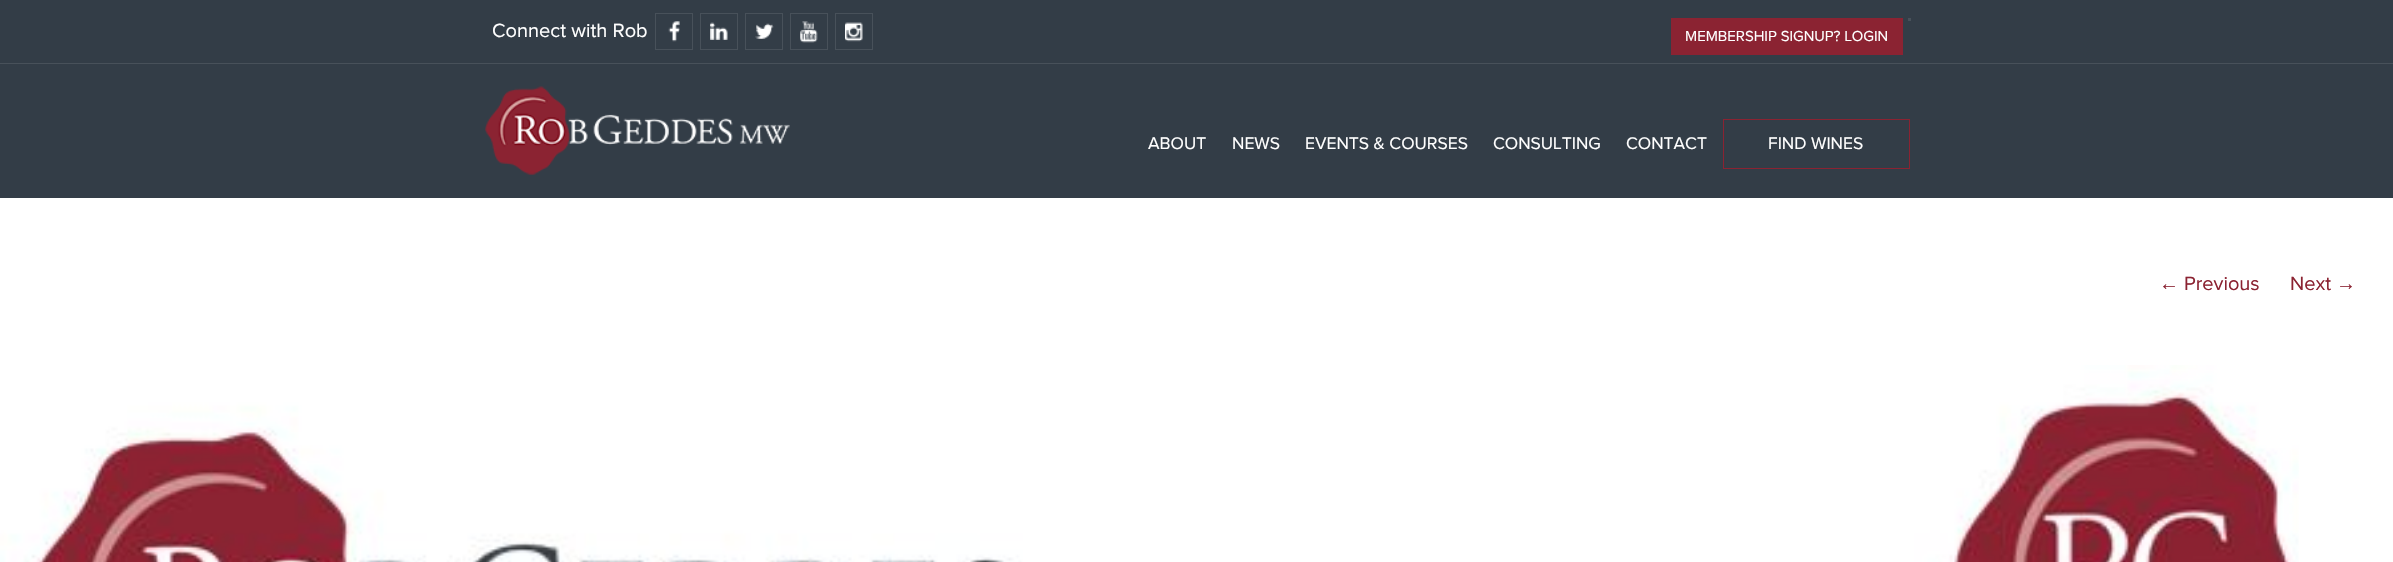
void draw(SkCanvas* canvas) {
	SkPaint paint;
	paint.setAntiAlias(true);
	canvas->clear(0xffffffff);
	paint.setColor(0xff333d47);
	canvas->drawRect(SkRect::MakeXYWH(0, 0, 2393, 198), paint);
	paint.setColor(0xff48515a);
	canvas->drawRect(SkRect::MakeXYWH(0, 63, 2393, 1), paint);
	canvas->drawRect(SkRect::MakeXYWH(1908, 18, 3, 3), paint);
	SkFont f1(fontMgr->matchFamilyStyle("Proxima Nova", SkFontStyle::Normal()), 20);
	f1.setSubpixel(true);
	paint.setColor(0xffffffff);
	canvas->drawString("Connect with Rob", 492, 37, f1, paint);
	paint.setStroke(true);
	paint.setStrokeWidth(1);
	paint.setColor(0xff48515a);
	canvas->drawRect(SkRect::MakeXYWH(655.5, 13.5, 37, 36), paint);
	canvas->drawImageRect(SkImages::DeferredFromEncodedData(SkData::MakeFromFileName("img1.png")), SkRect::MakeXYWH(668, 21, 12, 21), SkSamplingOptions());
	canvas->drawRect(SkRect::MakeXYWH(700.5, 13.5, 37, 36), paint);
	canvas->drawImageRect(SkImages::DeferredFromEncodedData(SkData::MakeFromFileName("img2.png")), SkRect::MakeXYWH(710, 22, 18, 18), SkSamplingOptions());
	canvas->drawRect(SkRect::MakeXYWH(745.5, 13.5, 37, 36), paint);
	canvas->drawImageRect(SkImages::DeferredFromEncodedData(SkData::MakeFromFileName("img3.png")), SkRect::MakeXYWH(755, 23, 19, 16), SkSamplingOptions());
	canvas->drawRect(SkRect::MakeXYWH(790.5, 13.5, 37, 36), paint);
	canvas->drawImageRect(SkImages::DeferredFromEncodedData(SkData::MakeFromFileName("img4.png")), SkRect::MakeXYWH(800, 21, 18, 22), SkSamplingOptions());
	canvas->drawRect(SkRect::MakeXYWH(835.5, 13.5, 37, 36), paint);
	canvas->drawImageRect(SkImages::DeferredFromEncodedData(SkData::MakeFromFileName("img5.png")), SkRect::MakeXYWH(845, 22, 18, 20), SkSamplingOptions());
	paint.setStroke(false);
	paint.setColor(0xff8b2332);
	canvas->drawRect(SkRect::MakeXYWH(1671, 18, 232, 37), paint);
	SkFont f2(fontMgr->matchFamilyStyle("Proxima Nova", SkFontStyle::Normal()), 15);
	f2.setSubpixel(true);
	paint.setColor(0xffffffff);
	canvas->drawString("MEMBERSHIP SIGNUP? LOGIN", 1685, 41, f2, paint);
	canvas->drawImageRect(SkImages::DeferredFromEncodedData(SkData::MakeFromFileName("img6.png")), SkRect::MakeXYWH(485, 86, 305, 89), SkSamplingOptions());
	SkFont f3(fontMgr->matchFamilyStyle("Proxima Nova", SkFontStyle::Normal()), 17.5);
	f3.setSubpixel(true);
	canvas->drawString("ABOUT", 1148, 149, f3, paint);
	canvas->drawString("NEWS", 1232, 149, f3, paint);
	canvas->drawString("EVENTS & COURSES", 1305, 149, f3, paint);
	canvas->drawString("CONSULTING", 1493, 149, f3, paint);
	canvas->drawString("CONTACT", 1626, 149, f3, paint);
	paint.setStroke(true);
	paint.setColor(0xff8b2332);
	canvas->drawRect(SkRect::MakeXYWH(1723.5, 119.5, 186, 49), paint);
	paint.setStroke(false);
	paint.setColor(0xffffffff);
	canvas->drawString("FIND WINES", 1768, 149, f3, paint);
	SkFont f4(fontMgr->matchFamilyStyle("Liberation Sans", SkFontStyle::Normal()), 20);
	f4.setSubpixel(true);
	paint.setColor(0xff8b2332);
	canvas->drawString("←", 2159, 290, f4, paint);
	canvas->drawString("Previous", 2184, 290, f1, paint);
	canvas->drawString("Next", 2290, 290, f1, paint);
	canvas->drawString("→", 2336, 290, f4, paint);
	canvas->drawImageRect(SkImages::DeferredFromEncodedData(SkData::MakeFromFileName("img7.png")), SkRect::MakeXYWH(0, 365, 2299, 197), SkSamplingOptions());
}
